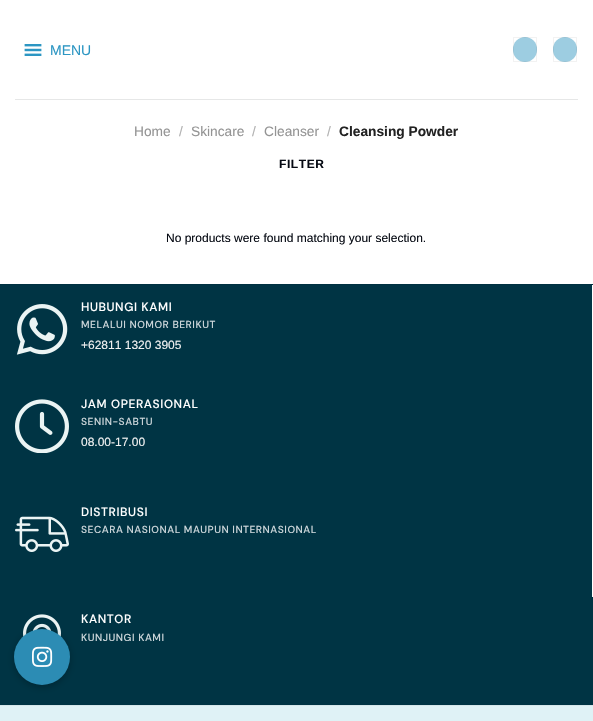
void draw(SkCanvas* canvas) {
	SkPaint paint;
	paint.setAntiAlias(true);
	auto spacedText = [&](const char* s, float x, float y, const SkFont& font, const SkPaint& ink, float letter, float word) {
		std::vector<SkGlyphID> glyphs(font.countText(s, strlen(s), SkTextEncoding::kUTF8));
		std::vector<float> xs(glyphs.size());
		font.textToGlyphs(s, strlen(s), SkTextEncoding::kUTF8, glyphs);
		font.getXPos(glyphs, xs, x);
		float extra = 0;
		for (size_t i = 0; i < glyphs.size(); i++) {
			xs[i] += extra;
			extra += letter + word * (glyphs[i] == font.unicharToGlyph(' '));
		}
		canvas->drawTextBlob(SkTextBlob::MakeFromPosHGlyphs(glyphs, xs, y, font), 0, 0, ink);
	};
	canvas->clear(0xffffffff);
	canvas->drawImageRect(SkImages::DeferredFromEncodedData(SkData::MakeFromFileName("img1.png")), SkRect::MakeXYWH(24, 44, 18, 12), SkSamplingOptions());
	SkFont f1(fontMgr->matchFamilyStyle("Liberation Sans", SkFontStyle::Normal()), 14);
	f1.setSubpixel(true);
	paint.setColor(0xff2c96c3);
	canvas->drawString("MENU", 50, 55, f1, paint);
	paint.setColor(0xff9dcde1);
	canvas->drawRoundRect(SkRect::MakeXYWH(513, 37, 24, 25), 12, 12, paint);
	paint.setStroke(true);
	paint.setStrokeWidth(1);
	paint.setColor(0x0d000000);
	canvas->drawRect(SkRect::MakeXYWH(513.5, 37.5, 23, 24), paint);
	paint.setStroke(false);
	paint.setColor(0xff9dcde1);
	canvas->drawRoundRect(SkRect::MakeXYWH(553, 37, 24, 25), 12, 12, paint);
	paint.setStroke(true);
	paint.setColor(0x0d000000);
	canvas->drawRect(SkRect::MakeXYWH(553.5, 37.5, 23, 24), paint);
	paint.setStroke(false);
	paint.setColor(0xffe6e7e7);
	canvas->drawRect(SkRect::MakeXYWH(15, 99, 563, 1), paint);
	SkFont f2(fontMgr->matchFamilyStyle("Liberation Sans", SkFontStyle::Normal()), 13.75);
	f2.setSubpixel(true);
	paint.setColor(0xff949494);
	canvas->drawString("Home", 134, 136, f2, paint);
	paint.setColor(0xffb2b2b2);
	canvas->drawString("/", 179, 136, f2, paint);
	paint.setColor(0xff949494);
	canvas->drawString("Skincare", 191, 136, f2, paint);
	paint.setColor(0xffb2b2b2);
	canvas->drawString("/", 252, 136, f2, paint);
	paint.setColor(0xff949494);
	canvas->drawString("Cleanser", 264, 136, f2, paint);
	paint.setColor(0xffb2b2b2);
	canvas->drawString("/", 327, 136, f2, paint);
	SkFont f3(fontMgr->matchFamilyStyle("Liberation Sans", SkFontStyle::Bold()), 13.75);
	f3.setSubpixel(true);
	paint.setColor(0xff222222);
	canvas->drawString("Cleansing Powder", 339, 136, f3, paint);
	SkFont f4(fontMgr->matchFamilyStyle("Liberation Sans", SkFontStyle::Bold()), 12);
	f4.setSubpixel(true);
	paint.setColor(0xff060a13);
	spacedText("FILTER", 279, 168, f4, paint, 0.6, 0);
	SkFont f5(fontMgr->matchFamilyStyle("Liberation Sans", SkFontStyle::Normal()), 12);
	f5.setSubpixel(true);
	canvas->drawString("No products were found matching your selection.", 166, 242, f5, paint);
	paint.setColor(0xff003444);
	canvas->drawRect(SkRect::MakeXYWH(0, 285, 593, 420), paint);
	paint.setColor(0xff003141);
	canvas->drawRect(SkRect::MakeXYWH(0, 284, 593, 1), paint);
	paint.setColor(0xffffffff);
	canvas->drawRect(SkRect::MakeXYWH(592, 285, 1, 312), paint);
	canvas->drawImageRect(SkImages::DeferredFromEncodedData(SkData::MakeFromFileName("img2.png")), SkRect::MakeXYWH(16, 304, 52, 51), SkSamplingOptions());
	SkFont f6(fontMgr->matchFamilyStyle("DM Sans", SkFontStyle(500, SkFontStyle::kNormal_Width, SkFontStyle::kUpright_Slant)), 12);
	f6.setSubpixel(true);
	spacedText("HUBUNGI KAMI", 81, 311, f6, paint, 0.6, 0);
	SkFont f7(fontMgr->matchFamilyStyle("DM Sans", SkFontStyle(500, SkFontStyle::kNormal_Width, SkFontStyle::kUpright_Slant)), 10.2);
	f7.setSubpixel(true);
	paint.setColor(0xffccd6da);
	spacedText("MELALUI NOMOR BERIKUT", 81, 328, f7, paint, 0.5, 0);
	paint.setColor(0xfff1f1f1);
	canvas->drawString("+62811 1320 3905", 81, 349, f5, paint);
	canvas->drawImageRect(SkImages::DeferredFromEncodedData(SkData::MakeFromFileName("img3.png")), SkRect::MakeXYWH(15, 399, 54, 54), SkSamplingOptions());
	paint.setColor(0xffffffff);
	spacedText("JAM OPERASIONAL", 81, 408, f6, paint, 0.6, 0);
	paint.setColor(0xffccd6da);
	spacedText("SENIN-SABTU", 81, 425, f7, paint, 0.5, 0);
	paint.setColor(0xfff1f1f1);
	canvas->drawString("08.00-17.00", 81, 446, f5, paint);
	canvas->drawImageRect(SkImages::DeferredFromEncodedData(SkData::MakeFromFileName("img4.png")), SkRect::MakeXYWH(15, 516, 54, 36), SkSamplingOptions());
	paint.setColor(0xffffffff);
	spacedText("DISTRIBUSI", 81, 516, f6, paint, 0.6, 0);
	paint.setColor(0xffccd6da);
	spacedText("SECARA NASIONAL MAUPUN INTERNASIONAL", 81, 533, f7, paint, 0.5, 0);
	canvas->drawImageRect(SkImages::DeferredFromEncodedData(SkData::MakeFromFileName("img5.png")), SkRect::MakeXYWH(23, 614, 38, 23), SkSamplingOptions());
	paint.setColor(0xffffffff);
	spacedText("KANTOR", 81, 623, f6, paint, 0.6, 0);
	paint.setColor(0xffccd6da);
	spacedText("KUNJUNGI KAMI", 81, 641, f7, paint, 0.5, 0);
	paint.setColor(0xffdff2f6);
	canvas->drawRect(SkRect::MakeXYWH(0, 706, 593, 15), paint);
	paint.setColor(0xffd4e6ea);
	canvas->drawRect(SkRect::MakeXYWH(0, 705, 593, 1), paint);
	paint.setColor(0x33000000);
	paint.setMaskFilter(SkMaskFilter::MakeBlur(kNormal_SkBlurStyle, 3));
	canvas->drawRoundRect(SkRect::MakeXYWH(13, 630, 58, 58), 29, 29, paint);
	paint.setMaskFilter(nullptr);
	paint.setColor(0xff2c8cb4);
	canvas->drawCircle(42, 657, 28, paint);
	canvas->drawImageRect(SkImages::DeferredFromEncodedData(SkData::MakeFromFileName("img6.png")), SkRect::MakeXYWH(32, 646, 21, 21), SkSamplingOptions());
}
